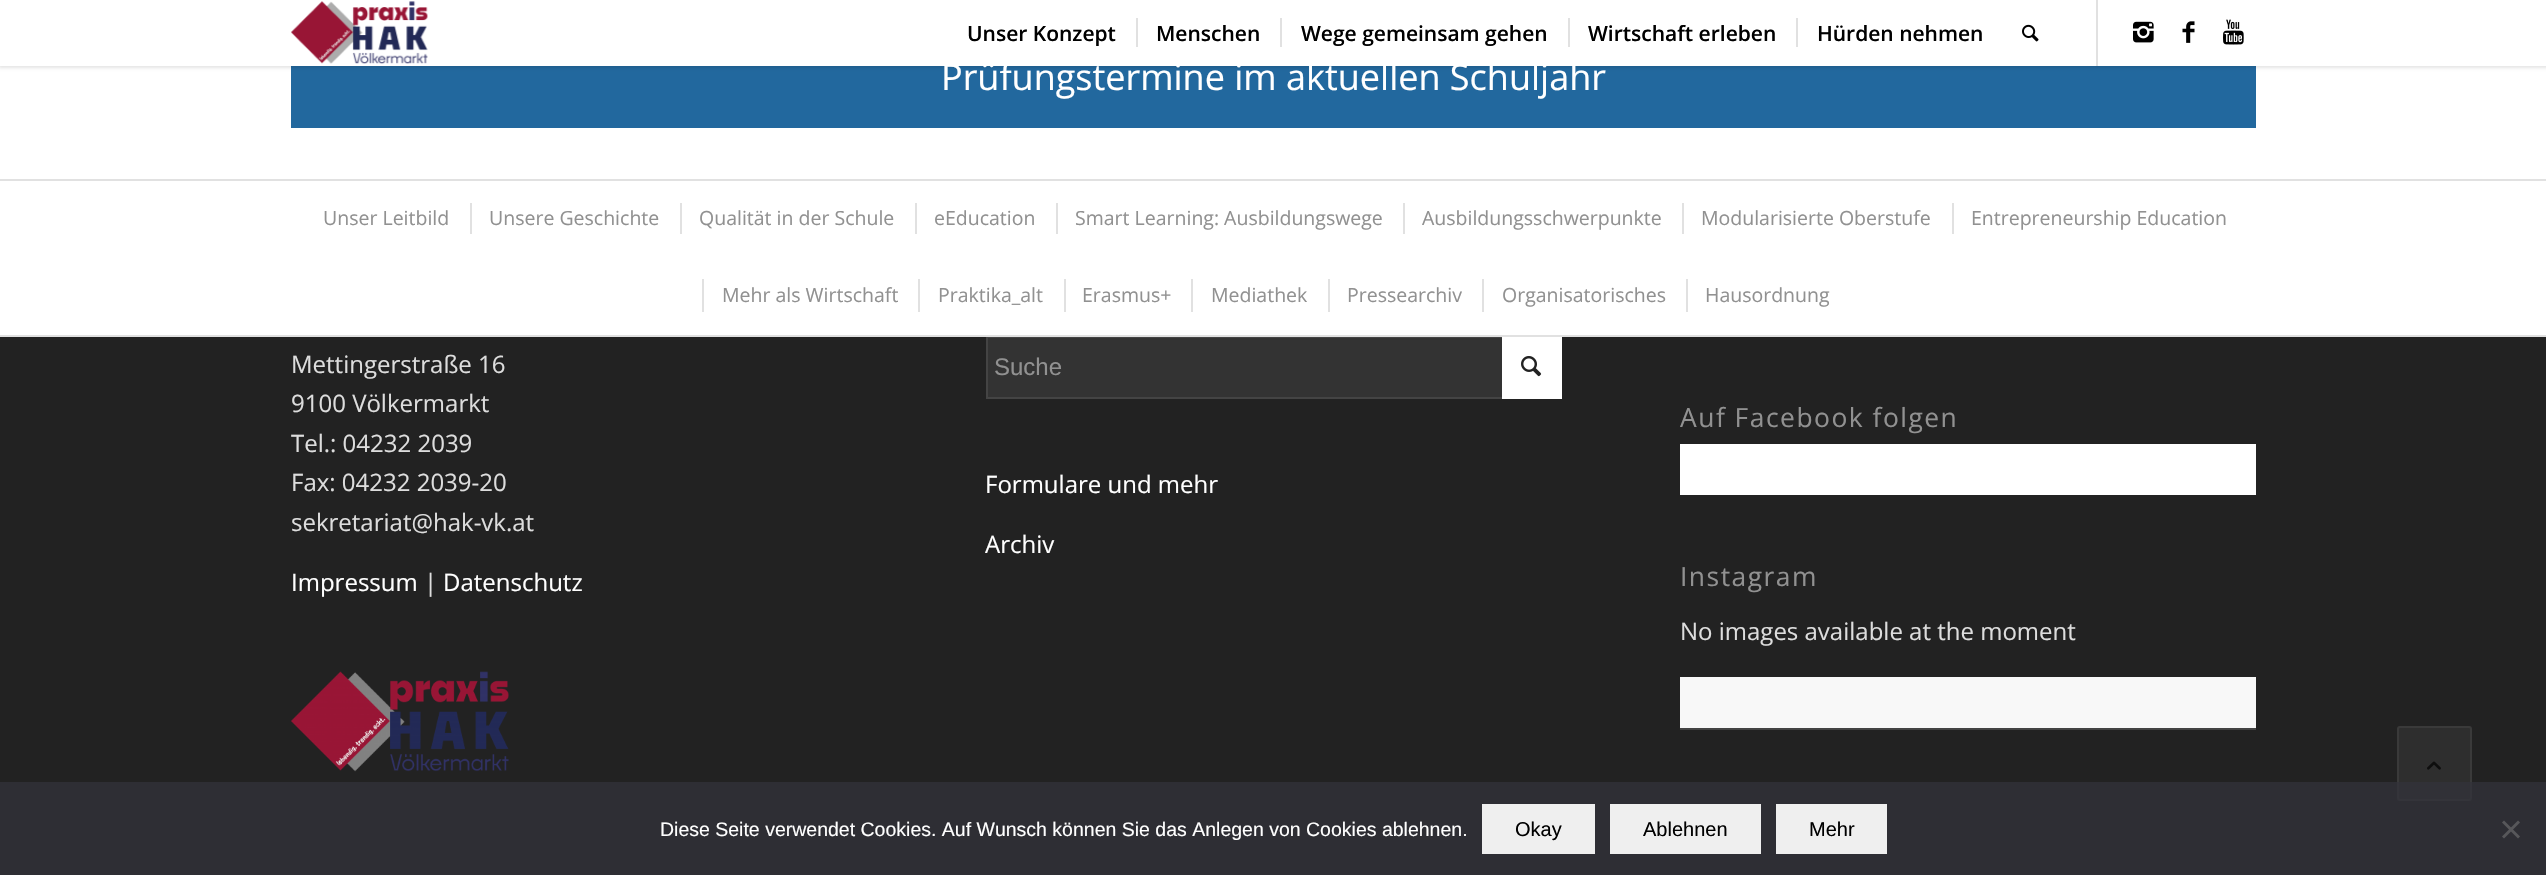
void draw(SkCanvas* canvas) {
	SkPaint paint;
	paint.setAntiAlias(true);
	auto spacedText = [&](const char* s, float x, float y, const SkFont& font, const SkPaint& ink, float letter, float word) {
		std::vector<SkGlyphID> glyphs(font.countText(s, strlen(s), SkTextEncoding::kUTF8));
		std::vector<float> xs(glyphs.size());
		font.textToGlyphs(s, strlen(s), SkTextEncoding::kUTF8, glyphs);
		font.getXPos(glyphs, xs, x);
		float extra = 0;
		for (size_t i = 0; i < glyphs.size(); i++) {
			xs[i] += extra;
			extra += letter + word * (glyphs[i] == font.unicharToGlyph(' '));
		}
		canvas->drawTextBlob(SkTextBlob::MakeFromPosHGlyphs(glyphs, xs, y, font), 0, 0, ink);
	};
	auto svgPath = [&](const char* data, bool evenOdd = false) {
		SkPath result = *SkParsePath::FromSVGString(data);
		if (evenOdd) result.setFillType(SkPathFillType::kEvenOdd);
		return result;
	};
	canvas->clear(0xffffffff);
	paint.setColor(0xff22689e);
	canvas->drawRect(SkRect::MakeXYWH(291, 66, 1965, 62), paint);
	paint.setColor(0x1a000000);
	paint.setMaskFilter(SkMaskFilter::MakeBlur(kNormal_SkBlurStyle, 1.5));
	canvas->drawRect(SkRect::MakeXYWH(-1, -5, 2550, 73), paint);
	paint.setMaskFilter(nullptr);
	paint.setColor(0xffffffff);
	canvas->drawRect(SkRect::MakeXYWH(0, 0, 2546, 66), paint);
	canvas->drawImageRect(SkImages::DeferredFromEncodedData(SkData::MakeFromFileName("img1.png")), SkRect::MakeXYWH(291, 1, 137, 63), SkSamplingOptions());
	paint.setColor(0xffe1e1e1);
	canvas->drawRect(SkRect::MakeXYWH(2096, 0, 2, 66), paint);
	SkFont f1(fontMgr->matchFamilyStyle("Open Sans", SkFontStyle(600, SkFontStyle::kNormal_Width, SkFontStyle::kUpright_Slant)), 21);
	f1.setSubpixel(true);
	paint.setColor(0xff000000);
	canvas->drawString("Unser Konzept", 967, 41, f1, paint);
	canvas->drawString("Menschen", 1156, 41, f1, paint);
	paint.setColor(0xffe1e1e1);
	canvas->drawRect(SkRect::MakeXYWH(1136, 18, 2, 29), paint);
	paint.setColor(0xff000000);
	canvas->drawString("Wege gemeinsam gehen", 1301, 41, f1, paint);
	paint.setColor(0xffe1e1e1);
	canvas->drawRect(SkRect::MakeXYWH(1280, 18, 2, 29), paint);
	paint.setColor(0xff000000);
	canvas->drawString("Wirtschaft erleben", 1588, 41, f1, paint);
	paint.setColor(0xffe1e1e1);
	canvas->drawRect(SkRect::MakeXYWH(1568, 18, 2, 29), paint);
	paint.setColor(0xff000000);
	canvas->drawString("Hürden nehmen", 1817, 41, f1, paint);
	paint.setColor(0xffe1e1e1);
	canvas->drawRect(SkRect::MakeXYWH(1796, 18, 2, 29), paint);
	canvas->drawImageRect(SkImages::DeferredFromEncodedData(SkData::MakeFromFileName("img2.png")), SkRect::MakeXYWH(2022, 24, 17, 18), SkSamplingOptions());
	canvas->drawImageRect(SkImages::DeferredFromEncodedData(SkData::MakeFromFileName("img3.png")), SkRect::MakeXYWH(2133, 21, 21, 22), SkSamplingOptions());
	canvas->drawImageRect(SkImages::DeferredFromEncodedData(SkData::MakeFromFileName("img4.png")), SkRect::MakeXYWH(2182, 21, 13, 22), SkSamplingOptions());
	canvas->drawImageRect(SkImages::DeferredFromEncodedData(SkData::MakeFromFileName("img5.png")), SkRect::MakeXYWH(2223, 19, 21, 26), SkSamplingOptions());
	SkFont f2(fontMgr->matchFamilyStyle("Open Sans", SkFontStyle::Normal()), 36);
	f2.setSubpixel(true);
	paint.setColor(0xffffffff);
	canvas->drawString("Prüfungstermine im aktuellen Schuljahr", 941, 90, f2, paint);
	paint.setColor(0xffe1e1e1);
	canvas->drawRect(SkRect::MakeXYWH(0, 179, 2546, 2), paint);
	paint.setColor(0xff222222);
	canvas->drawRect(SkRect::MakeXYWH(0, 337, 2546, 538), paint);
	paint.setColor(0xff333333);
	canvas->drawRect(SkRect::MakeXYWH(988, 338, 514, 59), paint);
	paint.setStroke(true);
	paint.setStrokeWidth(2);
	paint.setColor(0xff444444);
	canvas->drawRect(SkRect::MakeXYWH(987, 337, 574, 61), paint);
	paint.setStroke(false);
	paint.setColor(0xffe1e1e1);
	canvas->drawRect(SkRect::MakeXYWH(0, 335, 2546, 2), paint);
	SkFont f3(fontMgr->matchFamilyStyle("Open Sans", SkFontStyle::Normal()), 19.5);
	f3.setSubpixel(true);
	paint.setColor(0xff919191);
	canvas->drawString("Unser Leitbild", 323, 225, f3, paint);
	paint.setColor(0xffe1e1e1);
	canvas->drawRect(SkRect::MakeXYWH(470, 203, 2, 31), paint);
	paint.setColor(0xff919191);
	canvas->drawString("Unsere Geschichte", 489, 225, f3, paint);
	paint.setColor(0xffe1e1e1);
	canvas->drawRect(SkRect::MakeXYWH(680, 203, 2, 31), paint);
	paint.setColor(0xff919191);
	canvas->drawString("Qualität in der Schule", 699, 225, f3, paint);
	paint.setColor(0xffe1e1e1);
	canvas->drawRect(SkRect::MakeXYWH(915, 203, 2, 31), paint);
	paint.setColor(0xff919191);
	canvas->drawString("eEducation", 934, 225, f3, paint);
	paint.setColor(0xffe1e1e1);
	canvas->drawRect(SkRect::MakeXYWH(1056, 203, 2, 31), paint);
	paint.setColor(0xff919191);
	canvas->drawString("Smart Learning: Ausbildungswege", 1075, 225, f3, paint);
	paint.setColor(0xffe1e1e1);
	canvas->drawRect(SkRect::MakeXYWH(1403, 203, 2, 31), paint);
	paint.setColor(0xff919191);
	canvas->drawString("Ausbildungsschwerpunkte", 1422, 225, f3, paint);
	paint.setColor(0xffe1e1e1);
	canvas->drawRect(SkRect::MakeXYWH(1682, 203, 2, 31), paint);
	paint.setColor(0xff919191);
	canvas->drawString("Modularisierte Oberstufe", 1701, 225, f3, paint);
	paint.setColor(0xffe1e1e1);
	canvas->drawRect(SkRect::MakeXYWH(1952, 203, 2, 31), paint);
	paint.setColor(0xff919191);
	canvas->drawString("Entrepreneurship Education", 1971, 225, f3, paint);
	paint.setColor(0xffe1e1e1);
	canvas->drawRect(SkRect::MakeXYWH(702, 279, 2, 33), paint);
	paint.setColor(0xff919191);
	canvas->drawString("Mehr als Wirtschaft", 722, 302, f3, paint);
	paint.setColor(0xffe1e1e1);
	canvas->drawRect(SkRect::MakeXYWH(918, 279, 2, 33), paint);
	paint.setColor(0xff919191);
	canvas->drawString("Praktika_alt", 938, 302, f3, paint);
	paint.setColor(0xffe1e1e1);
	canvas->drawRect(SkRect::MakeXYWH(1064, 279, 2, 33), paint);
	paint.setColor(0xff919191);
	canvas->drawString("Erasmus+", 1082, 302, f3, paint);
	paint.setColor(0xffe1e1e1);
	canvas->drawRect(SkRect::MakeXYWH(1191, 279, 2, 33), paint);
	paint.setColor(0xff919191);
	canvas->drawString("Mediathek", 1211, 302, f3, paint);
	paint.setColor(0xffe1e1e1);
	canvas->drawRect(SkRect::MakeXYWH(1328, 279, 2, 33), paint);
	paint.setColor(0xff919191);
	canvas->drawString("Pressearchiv", 1347, 302, f3, paint);
	paint.setColor(0xffe1e1e1);
	canvas->drawRect(SkRect::MakeXYWH(1482, 279, 2, 33), paint);
	paint.setColor(0xff919191);
	canvas->drawString("Organisatorisches", 1502, 302, f3, paint);
	paint.setColor(0xffe1e1e1);
	canvas->drawRect(SkRect::MakeXYWH(1686, 279, 2, 33), paint);
	paint.setColor(0xff919191);
	canvas->drawString("Hausordnung", 1705, 302, f3, paint);
	SkFont f4(fontMgr->matchFamilyStyle("Open Sans", SkFontStyle::Normal()), 24);
	f4.setSubpixel(true);
	paint.setColor(0xffdddddd);
	canvas->drawString("Mettingerstraße 16", 291, 373, f4, paint);
	canvas->drawString("9100 Völkermarkt", 291, 412, f4, paint);
	canvas->drawString("Tel.: 04232 2039", 291, 452, f4, paint);
	canvas->drawString("Fax: 04232 2039-20", 291, 491, f4, paint);
	canvas->drawString("sekretariat@hak-vk.at", 291, 531, f4, paint);
	paint.setColor(0xffffffff);
	canvas->drawString("Impressum", 291, 591, f4, paint);
	paint.setColor(0xffdddddd);
	canvas->drawString("|", 424, 591, f4, paint);
	paint.setColor(0xffffffff);
	canvas->drawString("Datenschutz", 443, 591, f4, paint);
	canvas->drawImageRect(SkImages::DeferredFromEncodedData(SkData::MakeFromFileName("img6.png")), SkRect::MakeXYWH(291, 671, 218, 101), SkSamplingOptions());
	SkFont f5(fontMgr->matchFamilyStyle("Liberation Sans", SkFontStyle::Normal()), 24);
	f5.setSubpixel(true);
	paint.setColor(0xff919191);
	canvas->drawString("Suche", 994, 375, f5, paint);
	paint.setColor(0xffffffff);
	canvas->drawRect(SkRect::MakeXYWH(1502, 337, 60, 62), paint);
	canvas->drawImageRect(SkImages::DeferredFromEncodedData(SkData::MakeFromFileName("img7.png")), SkRect::MakeXYWH(1521, 356, 21, 21), SkSamplingOptions());
	canvas->drawString("Formulare und mehr", 985, 493, f4, paint);
	canvas->drawString("Archiv", 985, 553, f4, paint);
	SkFont f6(fontMgr->matchFamilyStyle("Open Sans", SkFontStyle::Normal()), 26.4);
	f6.setSubpixel(true);
	paint.setColor(0xff919191);
	spacedText("Auf Facebook folgen", 1680, 427, f6, paint, 1.5, 0);
	paint.setColor(0xffffffff);
	canvas->drawRect(SkRect::MakeXYWH(1680, 444, 576, 51), paint);
	paint.setColor(0xff919191);
	spacedText("Instagram", 1680, 586, f6, paint, 1.5, 0);
	paint.setColor(0xffdddddd);
	canvas->drawString("No images available at the moment", 1680, 640, f4, paint);
	paint.setColor(0xfff8f8f8);
	canvas->drawRect(SkRect::MakeXYWH(1680, 677, 576, 51), paint);
	paint.setColor(0xff444444);
	canvas->drawRect(SkRect::MakeXYWH(1680, 728, 576, 2), paint);
	paint.setColor(0xff2e2e2e);
	canvas->drawRoundRect(SkRect::MakeXYWH(2398, 727, 73, 73), 2, 2, paint);
	paint.setStroke(true);
	paint.setColor(0xff3a3a3a);
	canvas->drawRoundRect(SkRect::MakeXYWH(2398, 727, 73, 73), 2, 2, paint);
	canvas->drawImageRect(SkImages::DeferredFromEncodedData(SkData::MakeFromFileName("img8.png")), SkRect::MakeXYWH(2427, 761, 14, 9), SkSamplingOptions());
	paint.setStroke(false);
	paint.setColor(0xbf32323a);
	canvas->drawRect(SkRect::MakeXYWH(0, 782, 2546, 93), paint);
	SkFont f7(fontMgr->matchFamilyStyle("Liberation Sans", SkFontStyle::Normal()), 19.5);
	f7.setSubpixel(true);
	paint.setColor(0xffffffff);
	canvas->drawString("Diese Seite verwendet Cookies. Auf Wunsch können Sie das Anlegen von Cookies ablehnen.", 660, 836, f7, paint);
	paint.setColor(0xffefefef);
	canvas->drawRect(SkRect::MakeXYWH(1482, 804, 113, 50), paint);
	SkFont f8(fontMgr->matchFamilyStyle("Liberation Sans", SkFontStyle::Normal()), 20);
	f8.setSubpixel(true);
	paint.setColor(0xff000000);
	canvas->drawString("Okay", 1515, 836, f8, paint);
	paint.setColor(0xffefefef);
	canvas->drawRect(SkRect::MakeXYWH(1610, 804, 151, 50), paint);
	paint.setColor(0xff000000);
	canvas->drawString("Ablehnen", 1643, 836, f8, paint);
	paint.setColor(0xffefefef);
	canvas->drawRect(SkRect::MakeXYWH(1776, 804, 111, 50), paint);
	paint.setColor(0xff000000);
	canvas->drawString("Mehr", 1809, 836, f8, paint);
	paint.setColor(0xff57575a);
	canvas->drawPath(svgPath("M2518 820.5L2520 822.5L2504 838.5L2502 836.5Z"), paint);
	canvas->drawPath(svgPath("M2502 822.5L2504 820.5L2520 836.5L2518 838.5Z"), paint);
}
